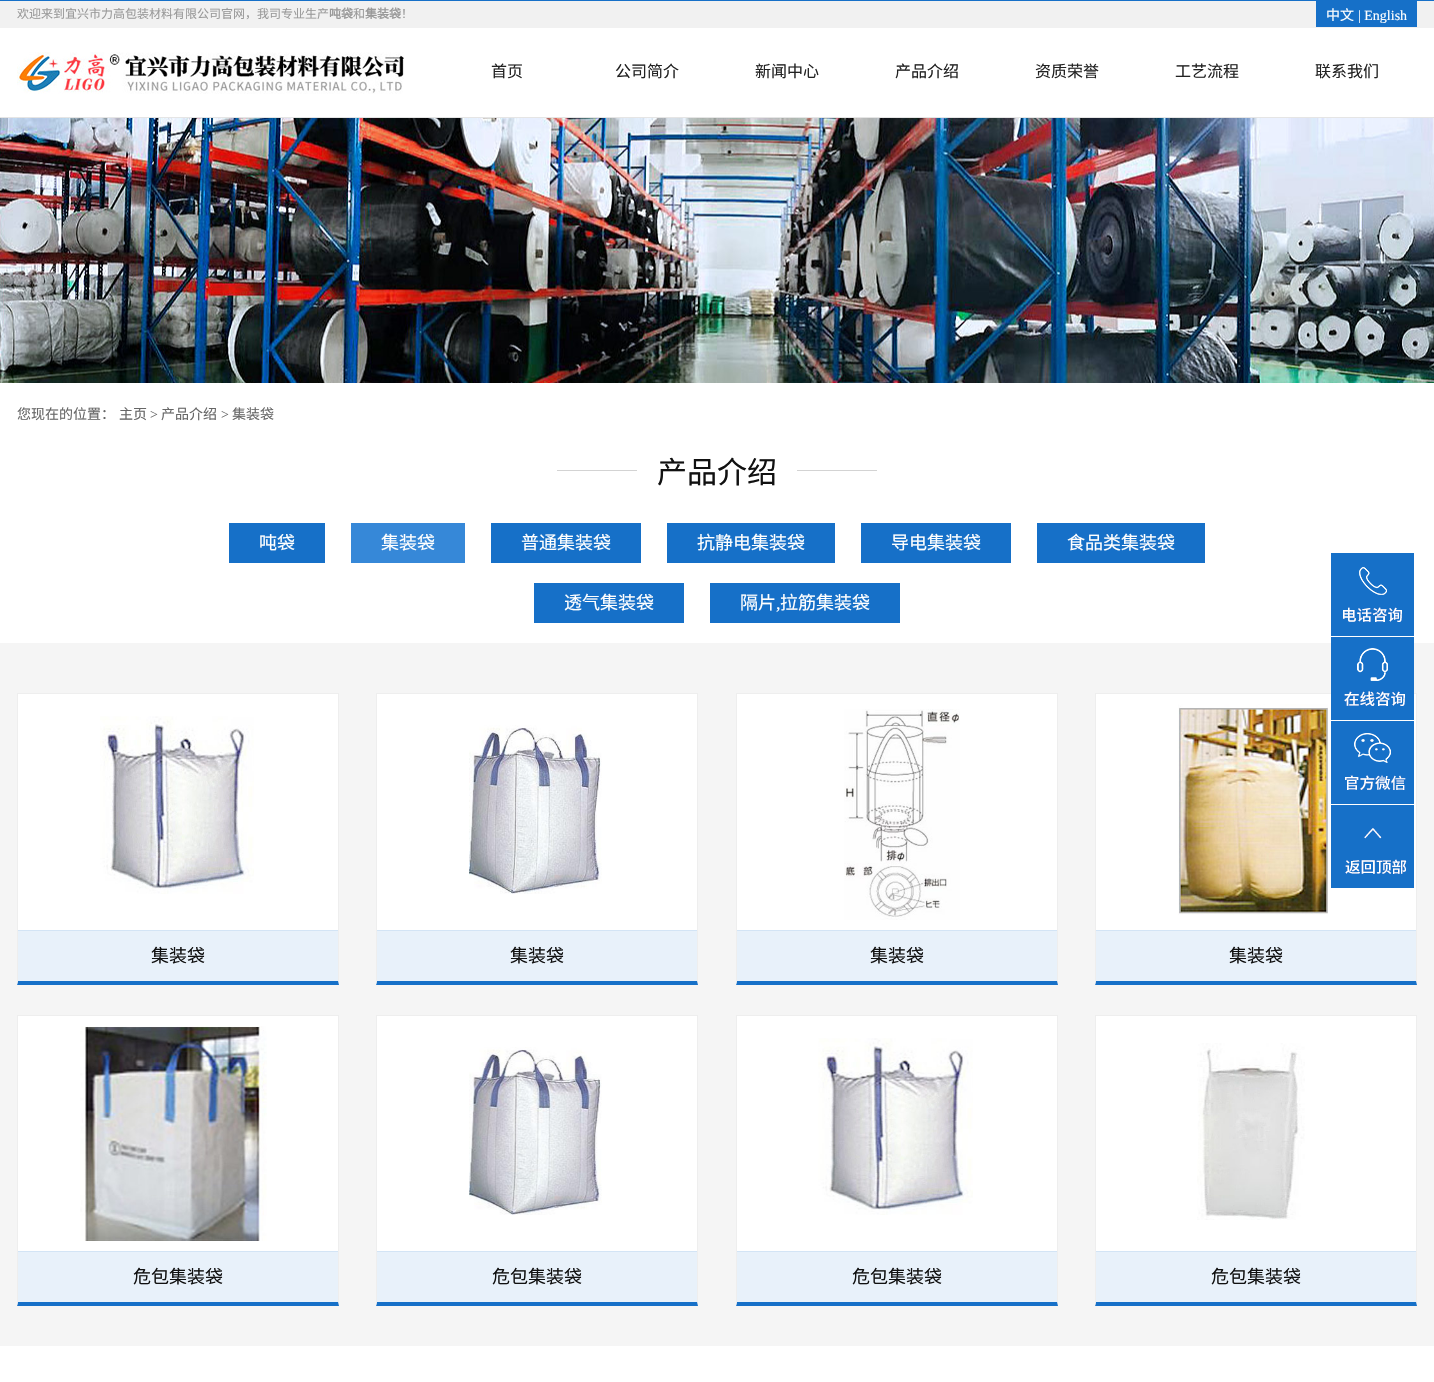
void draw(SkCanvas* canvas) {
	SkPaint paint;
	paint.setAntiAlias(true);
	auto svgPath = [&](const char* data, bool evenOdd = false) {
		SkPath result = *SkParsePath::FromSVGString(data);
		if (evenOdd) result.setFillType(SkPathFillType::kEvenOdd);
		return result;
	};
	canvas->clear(0xffffffff);
	paint.setColor(0xfff1f1f1);
	canvas->drawRect(SkRect::MakeXYWH(0, 1, 1434, 27), paint);
	paint.setColor(0xff1670c8);
	canvas->drawRect(SkRect::MakeXYWH(0, 0, 1434, 1), paint);
	SkFont f1(fontMgr->matchFamilyStyle("Noto Sans CJK SC", SkFontStyle::Normal()), 12);
	f1.setSubpixel(true);
	paint.setColor(0xff999999);
	canvas->drawString("欢迎来到宜兴市力高包装材料有限公司官网，我司专业生产", 17, 18, f1, paint);
	SkFont f2(fontMgr->matchFamilyStyle("Noto Sans CJK SC", SkFontStyle::Bold()), 12);
	f2.setSubpixel(true);
	canvas->drawString("吨袋", 329, 18, f2, paint);
	canvas->drawString("和", 353, 18, f1, paint);
	canvas->drawString("集装袋", 365, 18, f2, paint);
	canvas->drawString("！", 401, 18, f1, paint);
	paint.setColor(0xff1670c8);
	canvas->drawRect(SkRect::MakeXYWH(1316, 1, 101, 26), paint);
	SkFont f3(fontMgr->matchFamilyStyle("Noto Sans CJK SC", SkFontStyle::Normal()), 14);
	f3.setSubpixel(true);
	paint.setColor(0xffffffff);
	canvas->drawString("中文", 1326, 20, f3, paint);
	SkFont f4(fontMgr->matchFamilyStyle("Liberation Serif", SkFontStyle::Normal()), 14);
	f4.setSubpixel(true);
	canvas->drawString("| English", 1358, 20, f4, paint);
	paint.setColor(0xffe5e5e5);
	canvas->drawRect(SkRect::MakeXYWH(0, 117, 1434, 1), paint);
	canvas->drawImageRect(SkImages::DeferredFromEncodedData(SkData::MakeFromFileName("img1.png")), SkRect::MakeXYWH(17, 52, 387, 42), SkSamplingOptions());
	SkFont f5(fontMgr->matchFamilyStyle("Noto Sans CJK SC", SkFontStyle::Normal()), 16);
	f5.setSubpixel(true);
	paint.setColor(0xff222222);
	canvas->drawString("首页", 491, 77, f5, paint);
	canvas->drawString("公司简介", 615, 77, f5, paint);
	canvas->drawString("新闻中心", 755, 77, f5, paint);
	canvas->drawString("产品介绍", 895, 77, f5, paint);
	canvas->drawString("资质荣誉", 1035, 77, f5, paint);
	canvas->drawString("工艺流程", 1175, 77, f5, paint);
	canvas->drawString("联系我们", 1315, 77, f5, paint);
	canvas->drawImageRect(SkImages::DeferredFromEncodedData(SkData::MakeFromFileName("img2.png")), SkRect::MakeXYWH(0, 118, 1434, 265), SkSamplingOptions());
	paint.setColor(0xff666666);
	canvas->drawString("您现在的位置：", 17, 419, f3, paint);
	canvas->drawString("主页", 119, 419, f3, paint);
	canvas->drawString(">", 150, 419, f4, paint);
	canvas->drawString("产品介绍", 161, 419, f3, paint);
	canvas->drawString(">", 221, 419, f4, paint);
	canvas->drawString("集装袋", 232, 419, f3, paint);
	paint.setColor(0xffd3d3d3);
	canvas->drawRect(SkRect::MakeXYWH(557, 470, 80, 1), paint);
	SkFont f6(fontMgr->matchFamilyStyle("Noto Sans CJK SC", SkFontStyle::Normal()), 30);
	f6.setSubpixel(true);
	paint.setColor(0xff111111);
	canvas->drawString("产品介绍", 657, 483, f6, paint);
	paint.setColor(0xffd3d3d3);
	canvas->drawRect(SkRect::MakeXYWH(797, 470, 80, 1), paint);
	paint.setColor(0xff1670c8);
	canvas->drawRect(SkRect::MakeXYWH(229, 523, 96, 40), paint);
	SkFont f7(fontMgr->matchFamilyStyle("Noto Sans CJK SC", SkFontStyle::Normal()), 18);
	f7.setSubpixel(true);
	paint.setColor(0xffffffff);
	canvas->drawString("吨袋", 259, 549, f7, paint);
	paint.setColor(0xff3688d8);
	canvas->drawRect(SkRect::MakeXYWH(351, 523, 114, 40), paint);
	paint.setColor(0xffffffff);
	canvas->drawString("集装袋", 381, 549, f7, paint);
	paint.setColor(0xff1670c8);
	canvas->drawRect(SkRect::MakeXYWH(491, 523, 150, 40), paint);
	paint.setColor(0xffffffff);
	canvas->drawString("普通集装袋", 521, 549, f7, paint);
	paint.setColor(0xff1670c8);
	canvas->drawRect(SkRect::MakeXYWH(667, 523, 168, 40), paint);
	paint.setColor(0xffffffff);
	canvas->drawString("抗静电集装袋", 697, 549, f7, paint);
	paint.setColor(0xff1670c8);
	canvas->drawRect(SkRect::MakeXYWH(861, 523, 150, 40), paint);
	paint.setColor(0xffffffff);
	canvas->drawString("导电集装袋", 891, 549, f7, paint);
	paint.setColor(0xff1670c8);
	canvas->drawRect(SkRect::MakeXYWH(1037, 523, 168, 40), paint);
	paint.setColor(0xffffffff);
	canvas->drawString("食品类集装袋", 1067, 549, f7, paint);
	paint.setColor(0xff1670c8);
	canvas->drawRect(SkRect::MakeXYWH(534, 583, 150, 40), paint);
	paint.setColor(0xffffffff);
	canvas->drawString("透气集装袋", 564, 609, f7, paint);
	paint.setColor(0xff1670c8);
	canvas->drawRect(SkRect::MakeXYWH(710, 583, 190, 40), paint);
	paint.setColor(0xffffffff);
	canvas->drawString("隔片", 740, 609, f7, paint);
	SkFont f8(fontMgr->matchFamilyStyle("Liberation Serif", SkFontStyle::Normal()), 18);
	f8.setSubpixel(true);
	canvas->drawString(",", 776, 609, f8, paint);
	canvas->drawString("拉筋集装袋", 780, 609, f7, paint);
	paint.setColor(0xfff5f5f5);
	canvas->drawRect(SkRect::MakeXYWH(0, 643, 1434, 703), paint);
	paint.setColor(0xffffffff);
	canvas->drawRect(SkRect::MakeXYWH(18, 694, 320, 236), paint);
	paint.setColor(0xffeeeeee);
	canvas->drawRect(SkRect::MakeXYWH(17, 693, 322, 1), paint);
	canvas->drawPath(svgPath("M339 693V985L338 981V694Z"), paint);
	paint.setColor(0xff1670c8);
	canvas->drawPath(svgPath("M339 985H17L18 981H338Z"), paint);
	paint.setColor(0xffeeeeee);
	canvas->drawPath(svgPath("M17 985V693L18 694V981Z"), paint);
	canvas->drawImageRect(SkImages::DeferredFromEncodedData(SkData::MakeFromFileName("img3.png")), SkRect::MakeXYWH(100, 716, 154, 178), SkSamplingOptions());
	paint.setColor(0xffe8f1fa);
	canvas->drawRect(SkRect::MakeXYWH(18, 931, 320, 50), paint);
	paint.setColor(0xffd3e4f5);
	canvas->drawRect(SkRect::MakeXYWH(18, 930, 320, 1), paint);
	paint.setColor(0xff111111);
	canvas->drawString("集装袋", 151, 962, f7, paint);
	paint.setColor(0xffffffff);
	canvas->drawRect(SkRect::MakeXYWH(377, 694, 320, 236), paint);
	paint.setColor(0xffeeeeee);
	canvas->drawRect(SkRect::MakeXYWH(376, 693, 322, 1), paint);
	canvas->drawPath(svgPath("M698 693V985L697 981V694Z"), paint);
	paint.setColor(0xff1670c8);
	canvas->drawPath(svgPath("M698 985H376L377 981H697Z"), paint);
	paint.setColor(0xffeeeeee);
	canvas->drawPath(svgPath("M376 985V693L377 694V981Z"), paint);
	canvas->drawImageRect(SkImages::DeferredFromEncodedData(SkData::MakeFromFileName("img4.png")), SkRect::MakeXYWH(469, 725, 133, 169), SkSamplingOptions());
	paint.setColor(0xffe8f1fa);
	canvas->drawRect(SkRect::MakeXYWH(377, 931, 320, 50), paint);
	paint.setColor(0xffd3e4f5);
	canvas->drawRect(SkRect::MakeXYWH(377, 930, 320, 1), paint);
	paint.setColor(0xff111111);
	canvas->drawString("集装袋", 510, 962, f7, paint);
	paint.setColor(0xffffffff);
	canvas->drawRect(SkRect::MakeXYWH(737, 694, 320, 236), paint);
	paint.setColor(0xffeeeeee);
	canvas->drawRect(SkRect::MakeXYWH(736, 693, 322, 1), paint);
	canvas->drawPath(svgPath("M1058 693V985L1057 981V694Z"), paint);
	paint.setColor(0xff1670c8);
	canvas->drawPath(svgPath("M1058 985H736L737 981H1057Z"), paint);
	paint.setColor(0xffeeeeee);
	canvas->drawPath(svgPath("M736 985V693L737 694V981Z"), paint);
	canvas->drawImageRect(SkImages::DeferredFromEncodedData(SkData::MakeFromFileName("img5.png")), SkRect::MakeXYWH(844, 709, 116, 211), SkSamplingOptions());
	paint.setColor(0xffe8f1fa);
	canvas->drawRect(SkRect::MakeXYWH(737, 931, 320, 50), paint);
	paint.setColor(0xffd3e4f5);
	canvas->drawRect(SkRect::MakeXYWH(737, 930, 320, 1), paint);
	paint.setColor(0xff111111);
	canvas->drawString("集装袋", 870, 962, f7, paint);
	paint.setColor(0xffffffff);
	canvas->drawRect(SkRect::MakeXYWH(1096, 694, 320, 236), paint);
	paint.setColor(0xffeeeeee);
	canvas->drawRect(SkRect::MakeXYWH(1095, 693, 322, 1), paint);
	canvas->drawPath(svgPath("M1417 693V985L1416 981V694Z"), paint);
	paint.setColor(0xff1670c8);
	canvas->drawPath(svgPath("M1417 985H1095L1096 981H1416Z"), paint);
	paint.setColor(0xffeeeeee);
	canvas->drawPath(svgPath("M1095 985V693L1096 694V981Z"), paint);
	canvas->drawImageRect(SkImages::DeferredFromEncodedData(SkData::MakeFromFileName("img6.png")), SkRect::MakeXYWH(1178, 704, 150, 211), SkSamplingOptions());
	paint.setColor(0xffe8f1fa);
	canvas->drawRect(SkRect::MakeXYWH(1096, 931, 320, 50), paint);
	paint.setColor(0xffd3e4f5);
	canvas->drawRect(SkRect::MakeXYWH(1096, 930, 320, 1), paint);
	paint.setColor(0xff111111);
	canvas->drawString("集装袋", 1229, 962, f7, paint);
	paint.setColor(0xffffffff);
	canvas->drawRect(SkRect::MakeXYWH(18, 1016, 320, 235), paint);
	paint.setColor(0xffeeeeee);
	canvas->drawRect(SkRect::MakeXYWH(17, 1015, 322, 1), paint);
	canvas->drawPath(svgPath("M339 1015V1306L338 1302V1016Z"), paint);
	paint.setColor(0xff1670c8);
	canvas->drawPath(svgPath("M339 1306H17L18 1302H338Z"), paint);
	paint.setColor(0xffeeeeee);
	canvas->drawPath(svgPath("M17 1306V1015L18 1016V1302Z"), paint);
	canvas->drawImageRect(SkImages::DeferredFromEncodedData(SkData::MakeFromFileName("img7.png")), SkRect::MakeXYWH(80, 1026, 187, 215), SkSamplingOptions());
	paint.setColor(0xffe8f1fa);
	canvas->drawRect(SkRect::MakeXYWH(18, 1252, 320, 50), paint);
	paint.setColor(0xffd3e4f5);
	canvas->drawRect(SkRect::MakeXYWH(18, 1251, 320, 1), paint);
	paint.setColor(0xff111111);
	canvas->drawString("危包集装袋", 133, 1283, f7, paint);
	paint.setColor(0xffffffff);
	canvas->drawRect(SkRect::MakeXYWH(377, 1016, 320, 235), paint);
	paint.setColor(0xffeeeeee);
	canvas->drawRect(SkRect::MakeXYWH(376, 1015, 322, 1), paint);
	canvas->drawPath(svgPath("M698 1015V1306L697 1302V1016Z"), paint);
	paint.setColor(0xff1670c8);
	canvas->drawPath(svgPath("M698 1306H376L377 1302H697Z"), paint);
	paint.setColor(0xffeeeeee);
	canvas->drawPath(svgPath("M376 1306V1015L377 1016V1302Z"), paint);
	canvas->drawImageRect(SkImages::DeferredFromEncodedData(SkData::MakeFromFileName("img8.png")), SkRect::MakeXYWH(469, 1047, 133, 168), SkSamplingOptions());
	paint.setColor(0xffe8f1fa);
	canvas->drawRect(SkRect::MakeXYWH(377, 1252, 320, 50), paint);
	paint.setColor(0xffd3e4f5);
	canvas->drawRect(SkRect::MakeXYWH(377, 1251, 320, 1), paint);
	paint.setColor(0xff111111);
	canvas->drawString("危包集装袋", 492, 1283, f7, paint);
	paint.setColor(0xffffffff);
	canvas->drawRect(SkRect::MakeXYWH(737, 1016, 320, 235), paint);
	paint.setColor(0xffeeeeee);
	canvas->drawRect(SkRect::MakeXYWH(736, 1015, 322, 1), paint);
	canvas->drawPath(svgPath("M1058 1015V1306L1057 1302V1016Z"), paint);
	paint.setColor(0xff1670c8);
	canvas->drawPath(svgPath("M1058 1306H736L737 1302H1057Z"), paint);
	paint.setColor(0xffeeeeee);
	canvas->drawPath(svgPath("M736 1306V1015L737 1016V1302Z"), paint);
	canvas->drawImageRect(SkImages::DeferredFromEncodedData(SkData::MakeFromFileName("img9.png")), SkRect::MakeXYWH(818, 1038, 155, 177), SkSamplingOptions());
	paint.setColor(0xffe8f1fa);
	canvas->drawRect(SkRect::MakeXYWH(737, 1252, 320, 50), paint);
	paint.setColor(0xffd3e4f5);
	canvas->drawRect(SkRect::MakeXYWH(737, 1251, 320, 1), paint);
	paint.setColor(0xff111111);
	canvas->drawString("危包集装袋", 852, 1283, f7, paint);
	paint.setColor(0xffffffff);
	canvas->drawRect(SkRect::MakeXYWH(1096, 1016, 320, 235), paint);
	paint.setColor(0xffeeeeee);
	canvas->drawRect(SkRect::MakeXYWH(1095, 1015, 322, 1), paint);
	canvas->drawPath(svgPath("M1417 1015V1306L1416 1302V1016Z"), paint);
	paint.setColor(0xff1670c8);
	canvas->drawPath(svgPath("M1417 1306H1095L1096 1302H1416Z"), paint);
	paint.setColor(0xffeeeeee);
	canvas->drawPath(svgPath("M1095 1306V1015L1096 1016V1302Z"), paint);
	canvas->drawImageRect(SkImages::DeferredFromEncodedData(SkData::MakeFromFileName("img10.png")), SkRect::MakeXYWH(1197, 1043, 108, 177), SkSamplingOptions());
	paint.setColor(0xffe8f1fa);
	canvas->drawRect(SkRect::MakeXYWH(1096, 1252, 320, 50), paint);
	paint.setColor(0xffd3e4f5);
	canvas->drawRect(SkRect::MakeXYWH(1096, 1251, 320, 1), paint);
	paint.setColor(0xff111111);
	canvas->drawString("危包集装袋", 1211, 1283, f7, paint);
	canvas->drawImageRect(SkImages::DeferredFromEncodedData(SkData::MakeFromFileName("img11.png")), SkRect::MakeXYWH(1331, 553, 83, 83), SkSamplingOptions());
	canvas->drawImageRect(SkImages::DeferredFromEncodedData(SkData::MakeFromFileName("img12.png")), SkRect::MakeXYWH(1331, 637, 83, 83), SkSamplingOptions());
	canvas->drawImageRect(SkImages::DeferredFromEncodedData(SkData::MakeFromFileName("img13.png")), SkRect::MakeXYWH(1331, 721, 83, 83), SkSamplingOptions());
	canvas->drawImageRect(SkImages::DeferredFromEncodedData(SkData::MakeFromFileName("img14.png")), SkRect::MakeXYWH(1331, 805, 83, 83), SkSamplingOptions());
}
